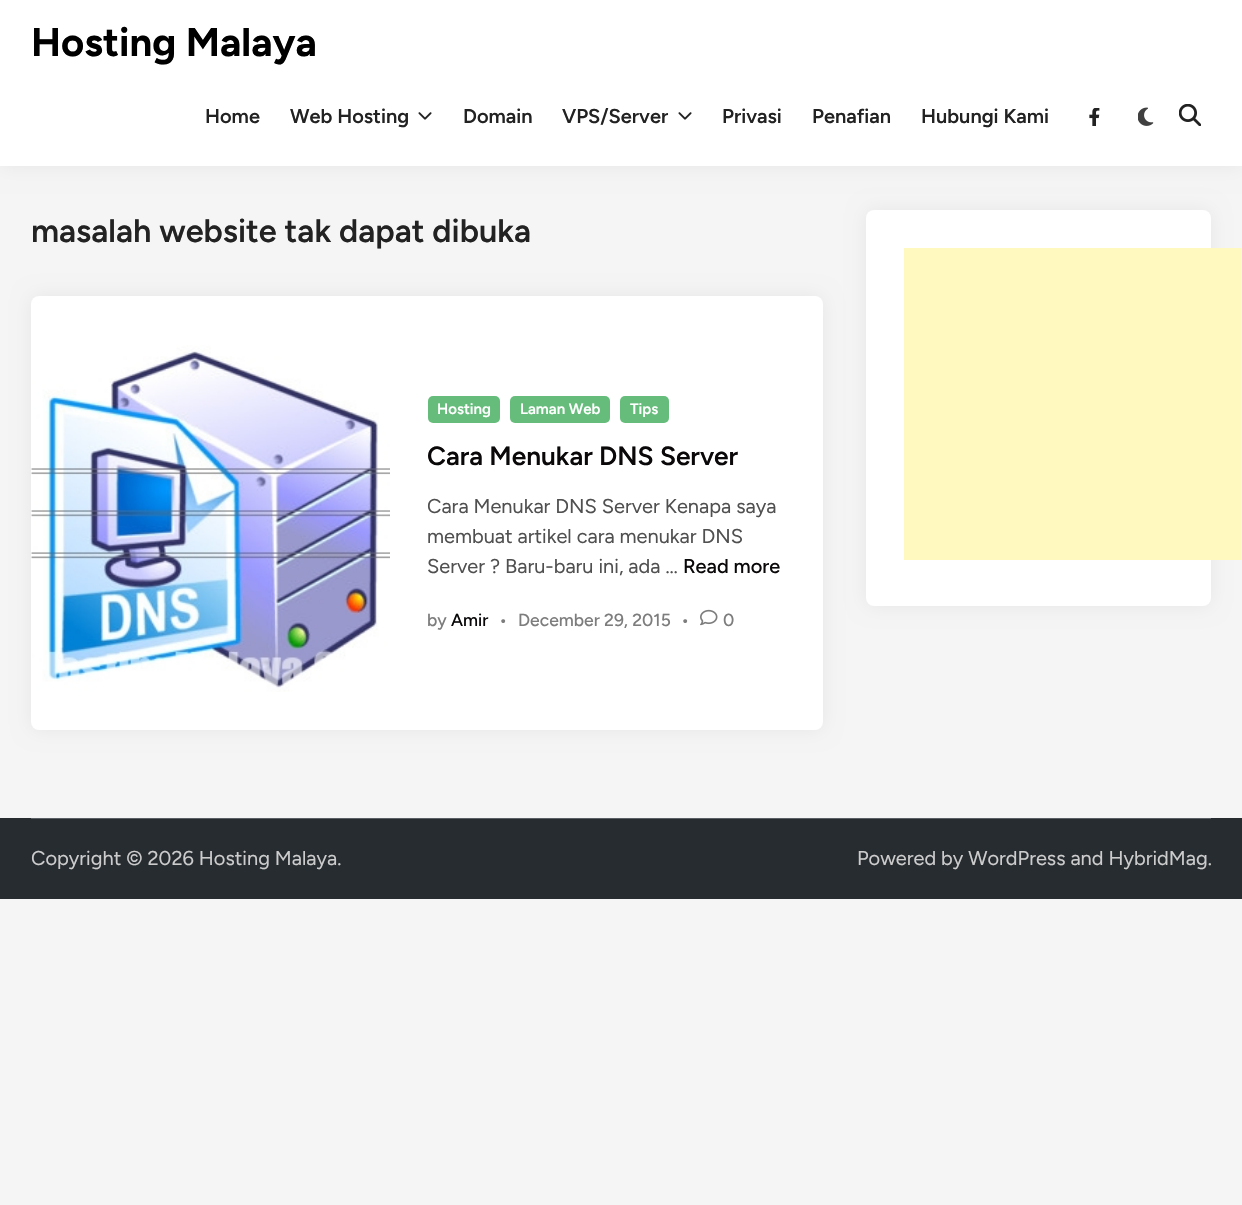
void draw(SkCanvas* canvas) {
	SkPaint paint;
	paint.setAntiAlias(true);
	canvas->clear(0xfff5f5f5);
	paint.setColor(0x0f000000);
	paint.setMaskFilter(SkMaskFilter::MakeBlur(kNormal_SkBlurStyle, 9.5));
	canvas->drawRect(SkRect::MakeXYWH(0, 0, 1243, 166), paint);
	paint.setMaskFilter(nullptr);
	paint.setColor(0xffffffff);
	canvas->drawRect(SkRect::MakeXYWH(0, 0, 1242, 166), paint);
	SkFont f1(fontMgr->matchFamilyStyle("Figtree", SkFontStyle::Bold()), 40);
	f1.setSubpixel(true);
	paint.setColor(0xff000000);
	canvas->drawString("Hosting Malaya", 31, 56, f1, paint);
	SkFont f2(fontMgr->matchFamilyStyle("Figtree", SkFontStyle(600, SkFontStyle::kNormal_Width, SkFontStyle::kUpright_Slant)), 20);
	f2.setSubpixel(true);
	paint.setColor(0xff222222);
	canvas->drawString("Home", 205, 123, f2, paint);
	canvas->drawString("Web Hosting", 290, 123, f2, paint);
	canvas->drawImageRect(SkImages::DeferredFromEncodedData(SkData::MakeFromFileName("img1.png")), SkRect::MakeXYWH(418, 112, 14, 8), SkSamplingOptions());
	canvas->drawString("Domain", 463, 123, f2, paint);
	canvas->drawString("VPS/Server", 562, 123, f2, paint);
	canvas->drawImageRect(SkImages::DeferredFromEncodedData(SkData::MakeFromFileName("img1.png")), SkRect::MakeXYWH(678, 112, 14, 8), SkSamplingOptions());
	canvas->drawString("Privasi", 722, 123, f2, paint);
	canvas->drawString("Penafian", 812, 123, f2, paint);
	canvas->drawString("Hubungi Kami", 921, 123, f2, paint);
	canvas->drawImageRect(SkImages::DeferredFromEncodedData(SkData::MakeFromFileName("img2.png")), SkRect::MakeXYWH(1089, 108, 11, 18), SkSamplingOptions());
	canvas->drawImageRect(SkImages::DeferredFromEncodedData(SkData::MakeFromFileName("img3.png")), SkRect::MakeXYWH(1138, 107, 16, 19), SkSamplingOptions());
	canvas->drawImageRect(SkImages::DeferredFromEncodedData(SkData::MakeFromFileName("img4.png")), SkRect::MakeXYWH(1179, 104, 22, 22), SkSamplingOptions());
	SkFont f3(fontMgr->matchFamilyStyle("Figtree", SkFontStyle(600, SkFontStyle::kNormal_Width, SkFontStyle::kUpright_Slant)), 32.5);
	f3.setSubpixel(true);
	canvas->drawString("masalah website tak dapat dibuka", 31, 242, f3, paint);
	paint.setColor(0x0f000000);
	paint.setMaskFilter(SkMaskFilter::MakeBlur(kNormal_SkBlurStyle, 9.5));
	canvas->drawRoundRect(SkRect::MakeXYWH(31, 296, 792, 434), 8, 8, paint);
	paint.setMaskFilter(nullptr);
	paint.setColor(0xffffffff);
	canvas->drawRoundRect(SkRect::MakeXYWH(31, 296, 792, 434), 8, 8, paint);
	canvas->drawImageRect(SkImages::DeferredFromEncodedData(SkData::MakeFromFileName("img5.png")), SkRect::MakeXYWH(31, 345, 359, 347), SkSamplingOptions());
	paint.setColor(0xff65bc7b);
	canvas->drawRoundRect(SkRect::MakeXYWH(428, 396, 72, 27), 5, 5, paint);
	SkFont f4(fontMgr->matchFamilyStyle("Figtree", SkFontStyle(600, SkFontStyle::kNormal_Width, SkFontStyle::kUpright_Slant)), 15);
	f4.setSubpixel(true);
	paint.setColor(0xffffffff);
	canvas->drawString("Hosting", 437, 414, f4, paint);
	paint.setColor(0xff65bc7b);
	canvas->drawRoundRect(SkRect::MakeXYWH(510, 396, 100, 27), 5, 5, paint);
	paint.setColor(0xffffffff);
	canvas->drawString("Laman Web", 520, 414, f4, paint);
	paint.setColor(0xff65bc7b);
	canvas->drawRoundRect(SkRect::MakeXYWH(620, 396, 49, 27), 5, 5, paint);
	paint.setColor(0xffffffff);
	canvas->drawString("Tips", 630, 414, f4, paint);
	SkFont f5(fontMgr->matchFamilyStyle("Figtree", SkFontStyle(600, SkFontStyle::kNormal_Width, SkFontStyle::kUpright_Slant)), 26.25);
	f5.setSubpixel(true);
	paint.setColor(0xff0a0808);
	canvas->drawString("Cara Menukar DNS Server", 427, 465, f5, paint);
	SkFont f6(fontMgr->matchFamilyStyle("Figtree", SkFontStyle::Normal()), 20);
	f6.setSubpixel(true);
	paint.setColor(0xff505050);
	canvas->drawString("Cara Menukar DNS Server Kenapa saya", 427, 513, f6, paint);
	canvas->drawString("membuat artikel cara menukar DNS", 427, 543, f6, paint);
	canvas->drawString("Server ? Baru-baru ini, ada …", 427, 573, f6, paint);
	SkFont f7(fontMgr->matchFamilyStyle("Figtree", SkFontStyle(500, SkFontStyle::kNormal_Width, SkFontStyle::kUpright_Slant)), 20);
	f7.setSubpixel(true);
	paint.setColor(0xff0a0808);
	canvas->drawString("Read more", 683, 573, f7, paint);
	SkFont f8(fontMgr->matchFamilyStyle("Figtree", SkFontStyle(500, SkFontStyle::kNormal_Width, SkFontStyle::kUpright_Slant)), 17.5);
	f8.setSubpixel(true);
	paint.setColor(0xff7d7d7d);
	canvas->drawString("by", 427, 626, f8, paint);
	paint.setColor(0xff0a0808);
	canvas->drawString("Amir", 451, 626, f8, paint);
	paint.setColor(0xff7d7d7d);
	canvas->drawString("•", 499, 626, f8, paint);
	canvas->drawString("December 29, 2015", 518, 626, f8, paint);
	canvas->drawString("•", 681, 626, f8, paint);
	canvas->drawImageRect(SkImages::DeferredFromEncodedData(SkData::MakeFromFileName("img6.png")), SkRect::MakeXYWH(700, 609, 18, 17), SkSamplingOptions());
	canvas->drawString("0", 723, 626, f8, paint);
	paint.setColor(0x0f000000);
	paint.setMaskFilter(SkMaskFilter::MakeBlur(kNormal_SkBlurStyle, 9.5));
	canvas->drawRoundRect(SkRect::MakeXYWH(866, 210, 345, 396), 8, 8, paint);
	paint.setMaskFilter(nullptr);
	paint.setColor(0xffffffff);
	canvas->drawRoundRect(SkRect::MakeXYWH(866, 210, 345, 396), 8, 8, paint);
	paint.setColor(0xfffff9c0);
	canvas->drawRect(SkRect::MakeXYWH(904, 248, 337, 312), paint);
	paint.setColor(0xff272c30);
	canvas->drawRect(SkRect::MakeXYWH(0, 818, 1242, 81), paint);
	paint.setColor(0xff595f64);
	canvas->drawRect(SkRect::MakeXYWH(31, 818, 1180, 1), paint);
	paint.setColor(0xffcccccc);
	canvas->drawString("Copyright © 2026 Hosting Malaya.", 31, 865, f6, paint);
	canvas->drawString("Powered by WordPress and HybridMag.", 857, 865, f6, paint);
}
